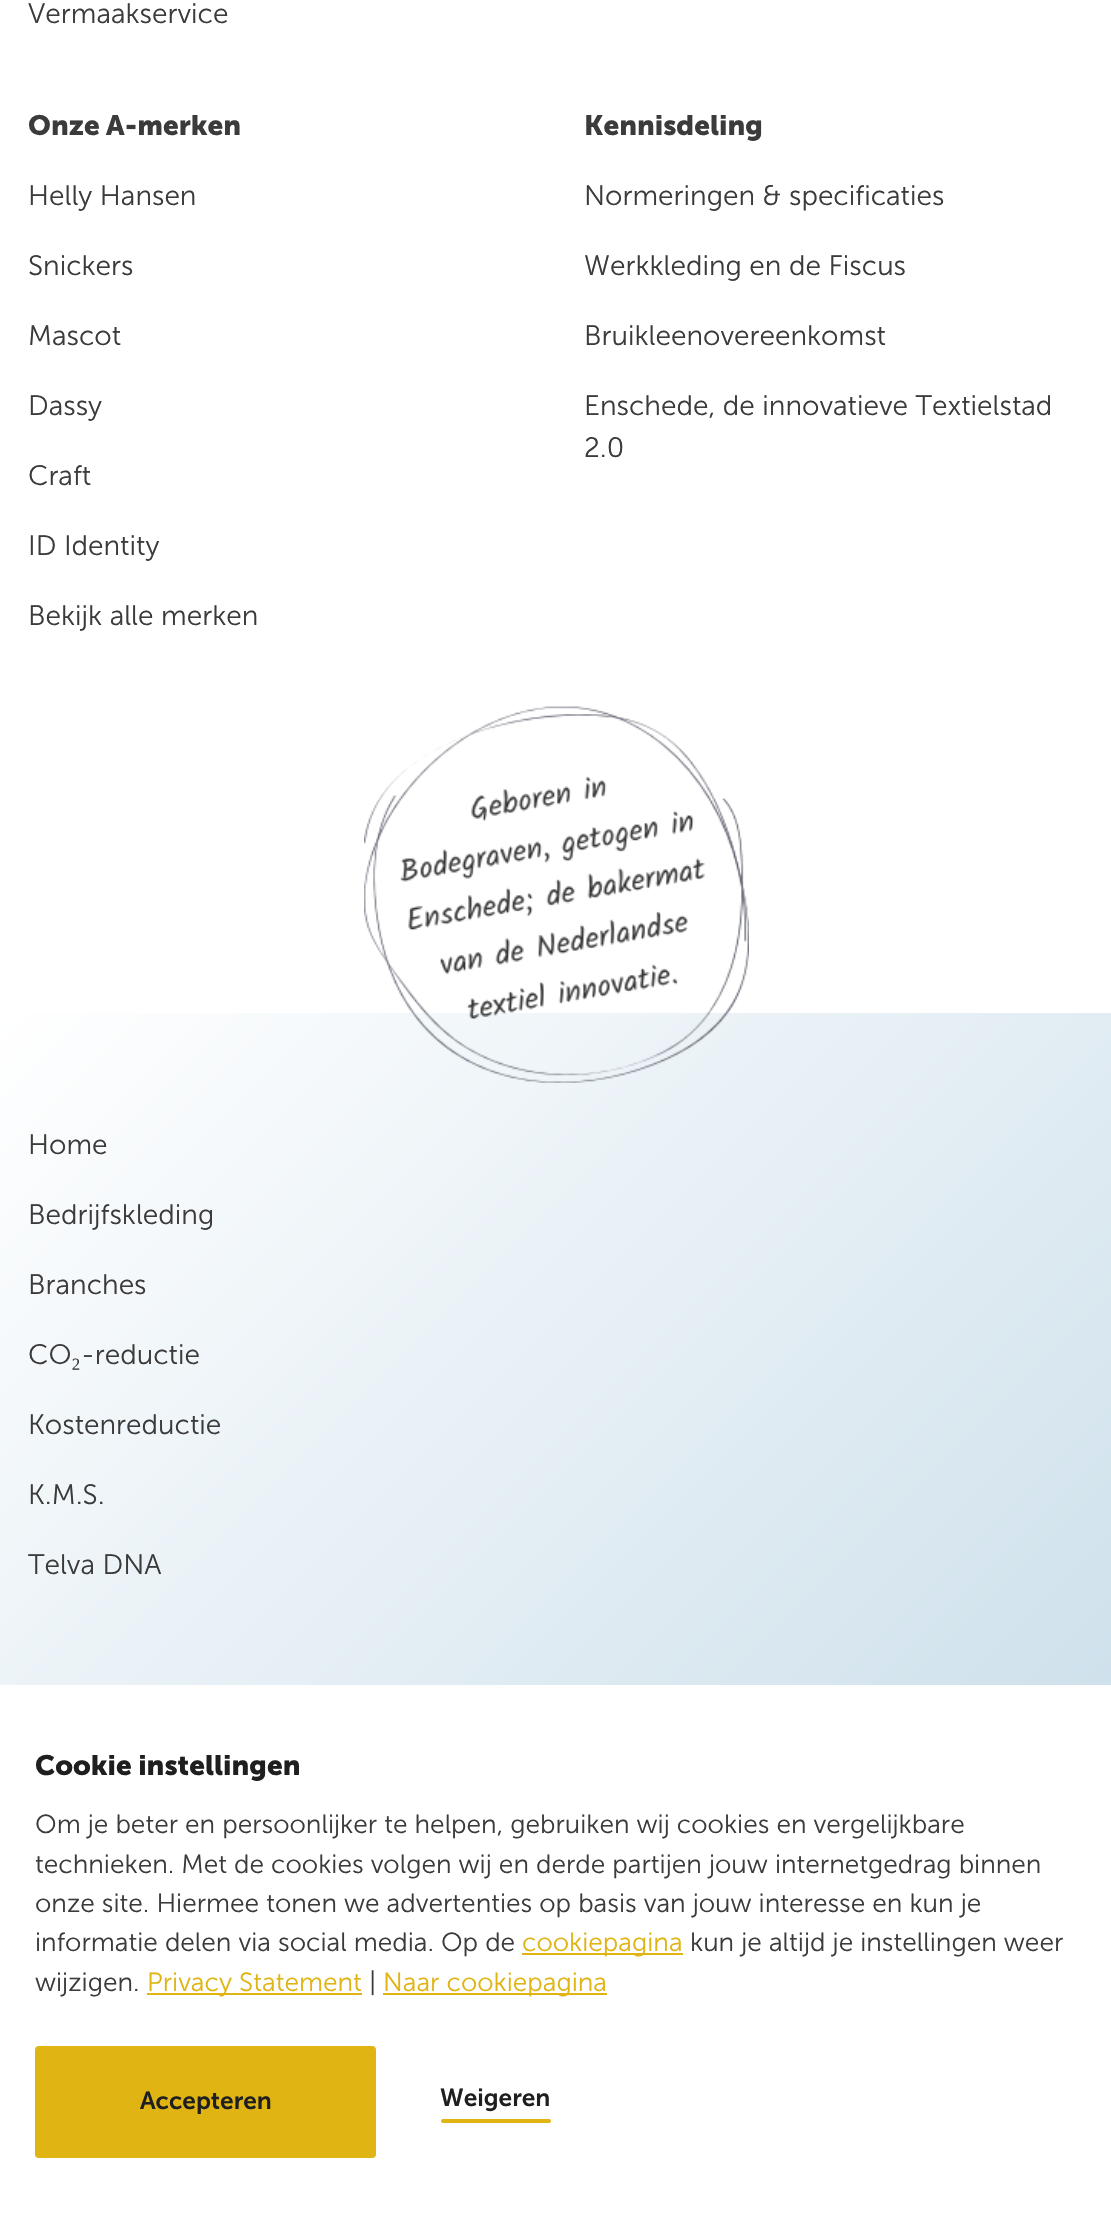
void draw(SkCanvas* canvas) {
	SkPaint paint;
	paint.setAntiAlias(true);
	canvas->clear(0xffffffff);
	SkFont f1(fontMgr->matchFamilyStyle("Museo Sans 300", SkFontStyle(300, SkFontStyle::kNormal_Width, SkFontStyle::kUpright_Slant)), 28);
	f1.setSubpixel(true);
	paint.setColor(0xff3b3b3b);
	canvas->drawString("Vermaakservice", 28, 23, f1, paint);
	SkFont f2(fontMgr->matchFamilyStyle("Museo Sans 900", SkFontStyle::Bold()), 28);
	f2.setSubpixel(true);
	canvas->drawString("Onze A-merken", 28, 135, f2, paint);
	canvas->drawString("Helly Hansen", 28, 205, f1, paint);
	canvas->drawString("Snickers", 28, 275, f1, paint);
	canvas->drawString("Mascot", 28, 345, f1, paint);
	canvas->drawString("Dassy", 28, 415, f1, paint);
	canvas->drawString("Craft", 28, 485, f1, paint);
	canvas->drawString("ID Identity", 28, 555, f1, paint);
	canvas->drawString("Bekijk alle merken", 28, 625, f1, paint);
	canvas->drawString("Kennisdeling", 584, 135, f2, paint);
	canvas->drawString("Normeringen & specificaties", 584, 205, f1, paint);
	canvas->drawString("Werkkleding en de Fiscus", 584, 275, f1, paint);
	canvas->drawString("Bruikleenovereenkomst", 584, 345, f1, paint);
	canvas->drawString("Enschede, de innovatieve Textielstad", 584, 415, f1, paint);
	canvas->drawString("2.0", 584, 457, f1, paint);
	{
		const SkColor colors[] = {0xffffffff, 0xffcfe1ec};
		const float stops[] = {0, 1};
		const SkPoint ends[] = {{110, 903}, {1001, 1795}};
		paint.setShader(SkGradientShader::MakeLinear(ends, colors, stops, 2, SkTileMode::kClamp));
		paint.setAlpha(255);
	}
	canvas->drawRect(SkRect::MakeXYWH(0, 1013, 1111, 672), paint);
	canvas->drawImageRect(SkImages::DeferredFromEncodedData(SkData::MakeFromFileName("img1.png")), SkRect::MakeXYWH(364, 706, 385, 377), SkSamplingOptions());
	paint.setShader(nullptr);
	paint.setColor(0xff3b3b3b);
	canvas->drawString("Home", 28, 1154, f1, paint);
	canvas->drawString("Bedrijfskleding", 28, 1224, f1, paint);
	canvas->drawString("Branches", 28, 1294, f1, paint);
	canvas->drawString("CO", 28, 1364, f1, paint);
	SkFont f3(fontMgr->matchFamilyStyle("Liberation Serif", SkFontStyle::Normal()), 28);
	f3.setSubpixel(true);
	canvas->drawString("₂", 71, 1364, f3, paint);
	canvas->drawString("-reductie", 81, 1364, f1, paint);
	canvas->drawString("Kostenreductie", 28, 1434, f1, paint);
	canvas->drawString("K.M.S.", 28, 1504, f1, paint);
	canvas->drawString("Telva DNA", 28, 1574, f1, paint);
	paint.setColor(0xff1f1f1f);
	canvas->drawString("Cookie instellingen", 35, 1775, f2, paint);
	SkFont f4(fontMgr->matchFamilyStyle("Museo Sans 300", SkFontStyle(300, SkFontStyle::kNormal_Width, SkFontStyle::kUpright_Slant)), 26.25);
	f4.setSubpixel(true);
	paint.setColor(0xff3b3b3b);
	canvas->drawString("Om je beter en persoonlijker te helpen, gebruiken wij cookies en vergelijkbare", 35, 1833, f4, paint);
	canvas->drawString("technieken. Met de cookies volgen wij en derde partijen jouw internetgedrag binnen", 35, 1873, f4, paint);
	canvas->drawString("onze site. Hiermee tonen we advertenties op basis van jouw interesse en kun je", 35, 1912, f4, paint);
	canvas->drawString("informatie delen via social media. Op de", 35, 1951, f4, paint);
	paint.setColor(0xffe0b413);
	canvas->drawRect(SkRect::MakeXYWH(522, 1953, 161, 2), paint);
	canvas->drawString("cookiepagina", 522, 1951, f4, paint);
	paint.setColor(0xff3b3b3b);
	canvas->drawString("kun je altijd je instellingen weer", 690, 1951, f4, paint);
	canvas->drawString("wijzigen.", 35, 1991, f4, paint);
	paint.setColor(0xffe0b413);
	canvas->drawRect(SkRect::MakeXYWH(147, 1993, 215, 2), paint);
	canvas->drawString("Privacy Statement", 147, 1991, f4, paint);
	paint.setColor(0xff3b3b3b);
	canvas->drawString("|", 369, 1991, f4, paint);
	paint.setColor(0xffe0b413);
	canvas->drawRect(SkRect::MakeXYWH(383, 1993, 224, 2), paint);
	canvas->drawString("Naar cookiepagina", 383, 1991, f4, paint);
	canvas->drawRoundRect(SkRect::MakeXYWH(35, 2046, 341, 112), 4, 4, paint);
	SkFont f5(fontMgr->matchFamilyStyle("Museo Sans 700", SkFontStyle(600, SkFontStyle::kNormal_Width, SkFontStyle::kUpright_Slant)), 24.5);
	f5.setSubpixel(true);
	paint.setColor(0xff1f1f1f);
	canvas->drawString("Accepteren", 140, 2109, f5, paint);
	canvas->drawString("Weigeren", 440, 2106, f5, paint);
	paint.setColor(0xffe0b413);
	canvas->drawRoundRect(SkRect::MakeXYWH(441, 2119, 110, 4), 2, 2, paint);
}
